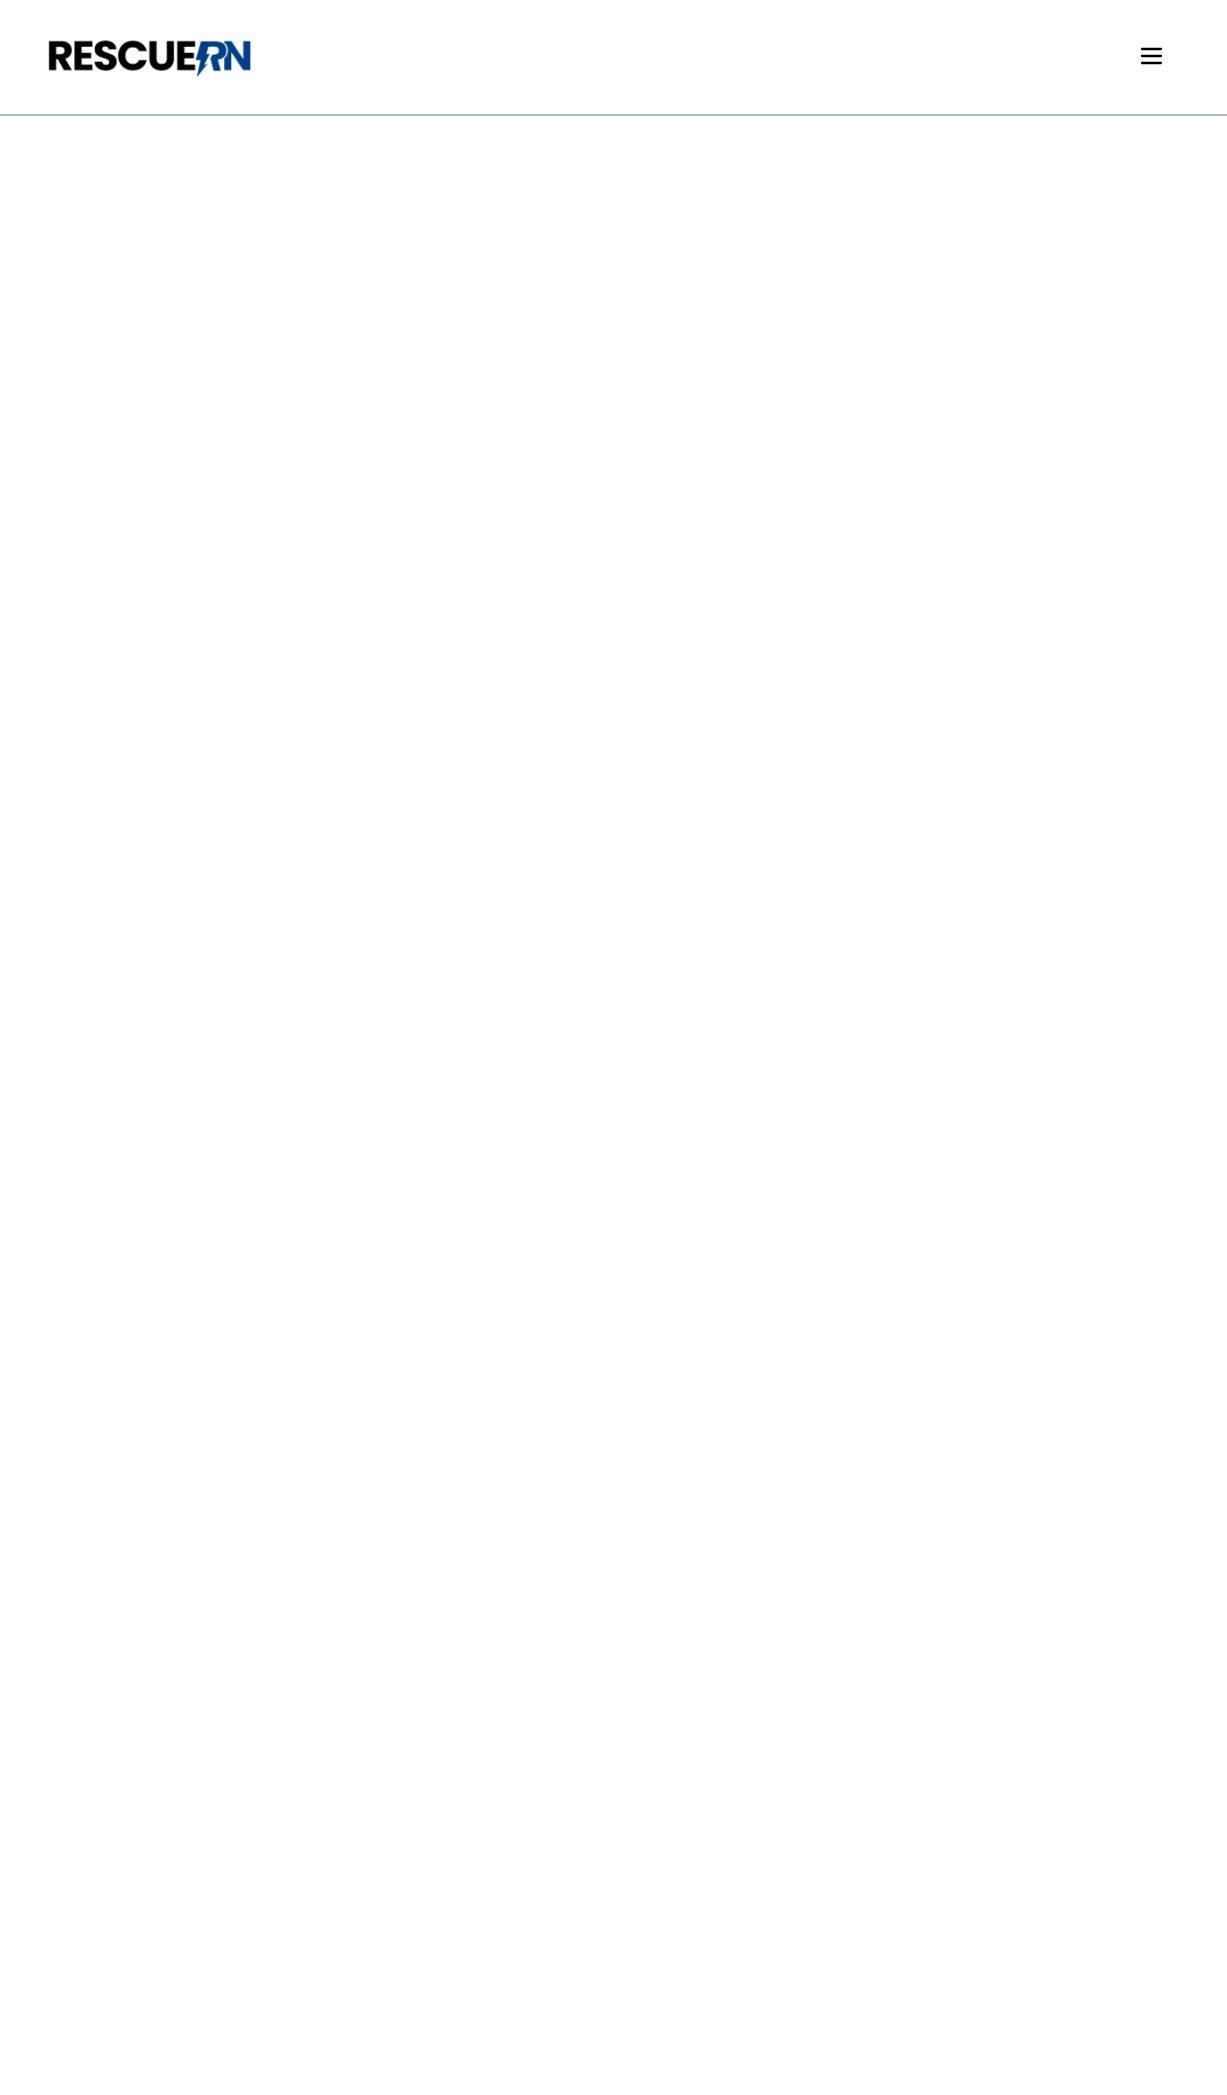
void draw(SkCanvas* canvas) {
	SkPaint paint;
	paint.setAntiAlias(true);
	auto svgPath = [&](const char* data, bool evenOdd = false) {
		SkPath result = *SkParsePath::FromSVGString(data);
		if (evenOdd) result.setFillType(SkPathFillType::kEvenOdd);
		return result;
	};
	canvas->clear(0xffffffff);
	paint.setColor(0xffb1bcc8);
	canvas->drawRect(SkRect::MakeXYWH(0, 114, 1227, 2), paint);
	canvas->drawImageRect(SkImages::DeferredFromEncodedData(SkData::MakeFromFileName("img1.png")), SkRect::MakeXYWH(48, 40, 204, 38), SkSamplingOptions());
	paint.setStroke(true);
	paint.setStrokeWidth(2.3);
	paint.setStrokeCap(SkPaint::kRound_Cap);
	paint.setStrokeJoin(SkPaint::kRound_Join);
	paint.setColor(0xff000000);
	canvas->drawPath(svgPath("M1142 56H1161M1142 49H1161M1142 63H1161"), paint);
}
